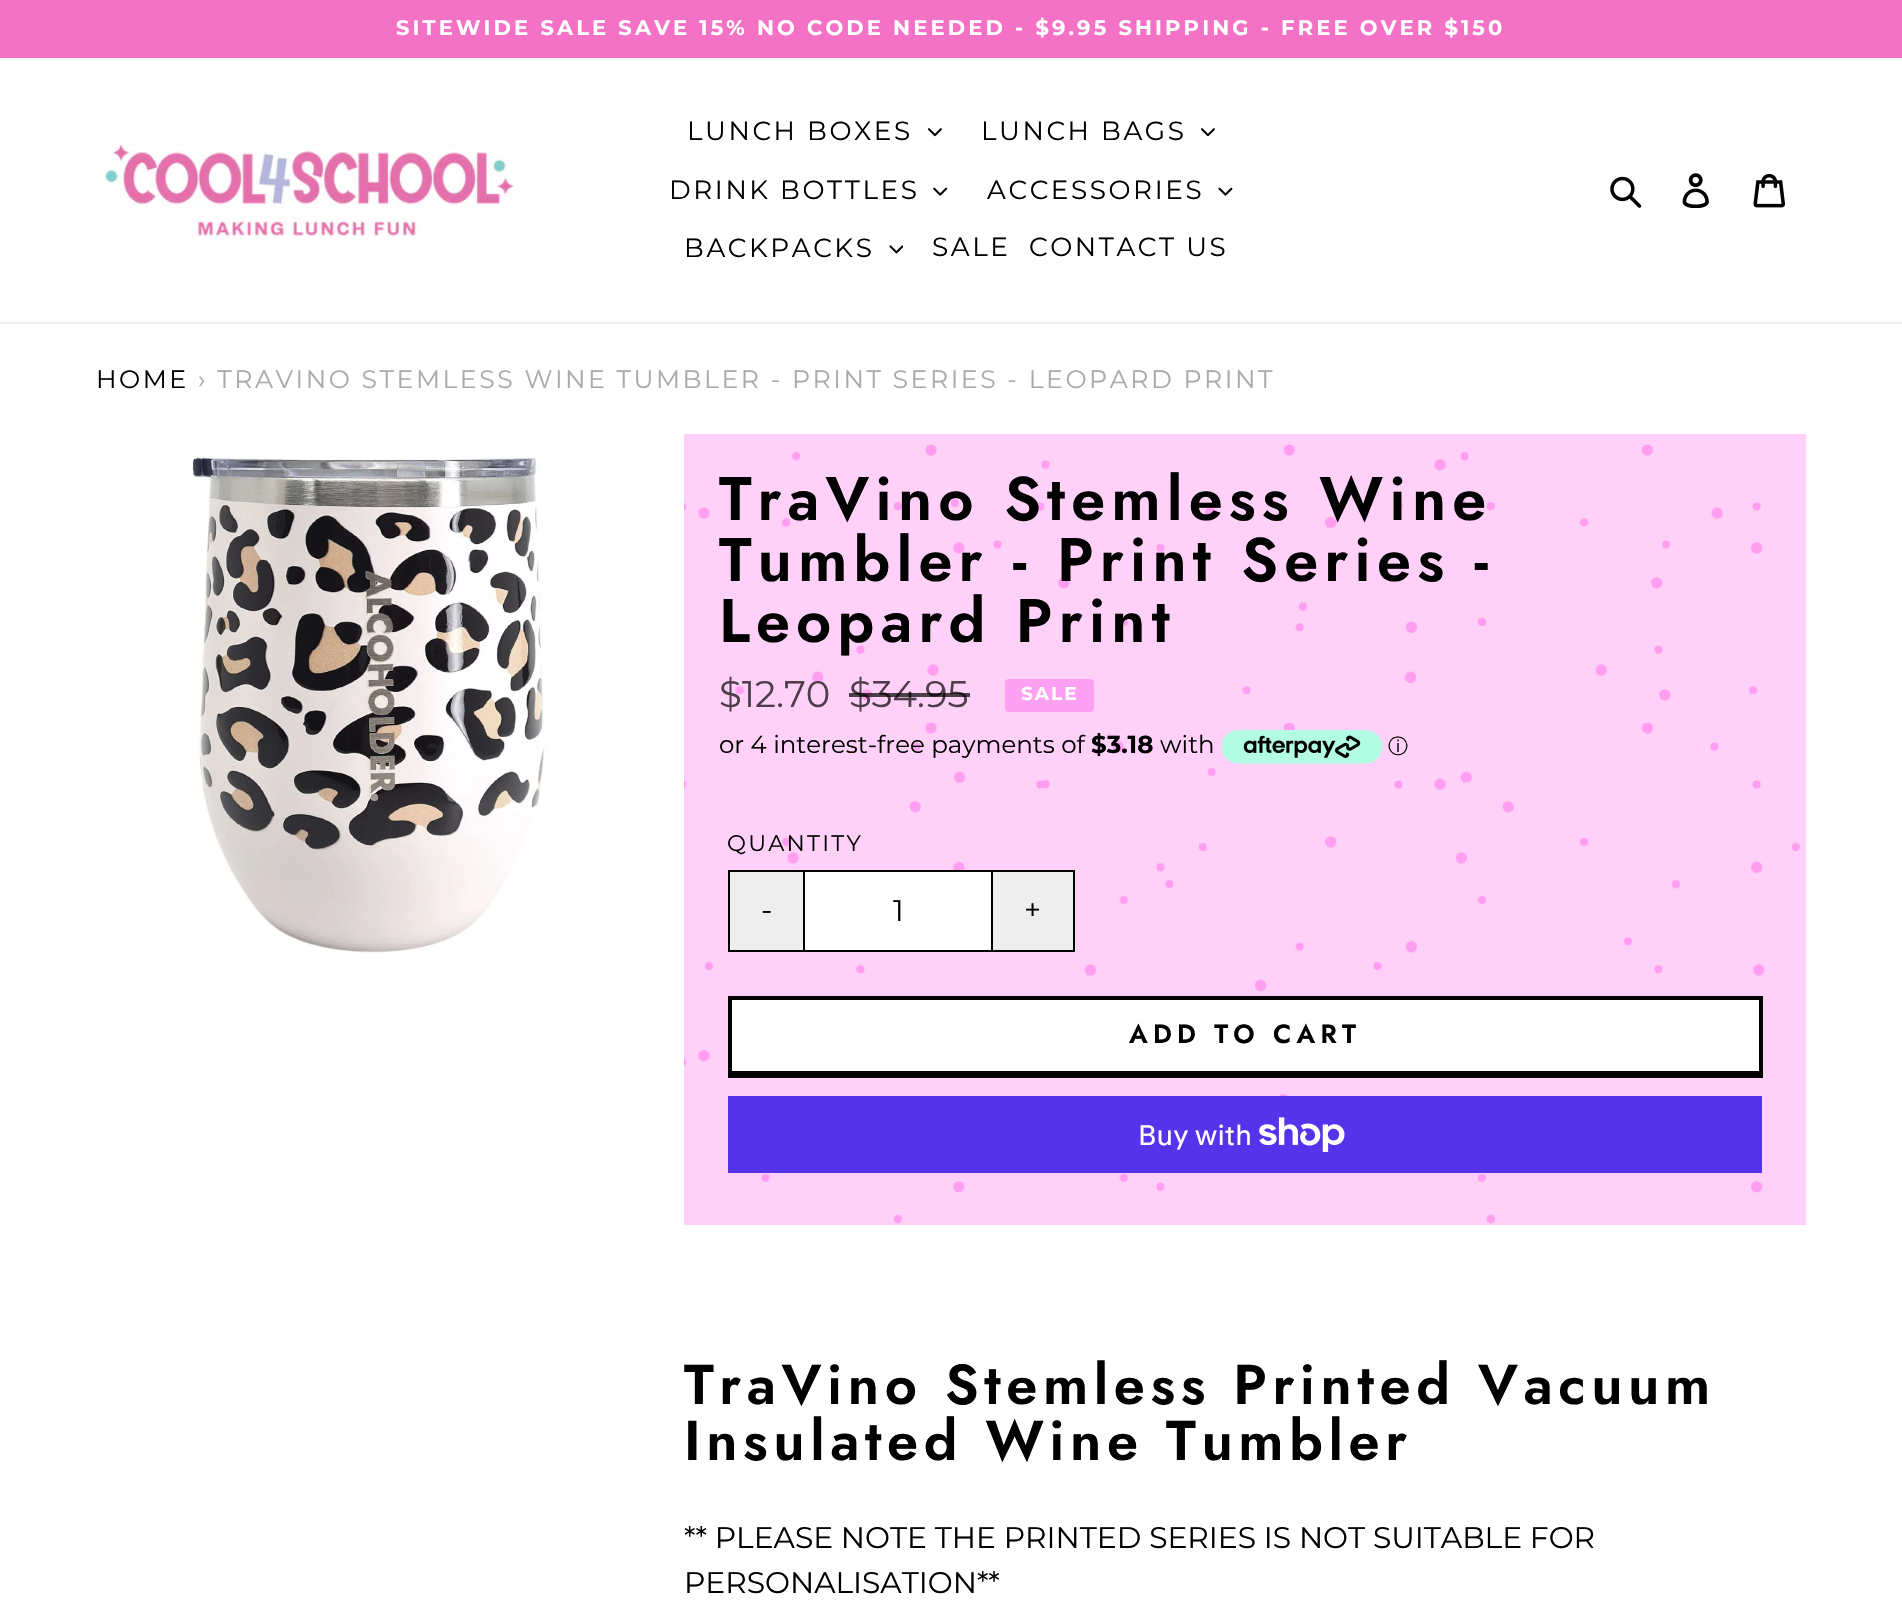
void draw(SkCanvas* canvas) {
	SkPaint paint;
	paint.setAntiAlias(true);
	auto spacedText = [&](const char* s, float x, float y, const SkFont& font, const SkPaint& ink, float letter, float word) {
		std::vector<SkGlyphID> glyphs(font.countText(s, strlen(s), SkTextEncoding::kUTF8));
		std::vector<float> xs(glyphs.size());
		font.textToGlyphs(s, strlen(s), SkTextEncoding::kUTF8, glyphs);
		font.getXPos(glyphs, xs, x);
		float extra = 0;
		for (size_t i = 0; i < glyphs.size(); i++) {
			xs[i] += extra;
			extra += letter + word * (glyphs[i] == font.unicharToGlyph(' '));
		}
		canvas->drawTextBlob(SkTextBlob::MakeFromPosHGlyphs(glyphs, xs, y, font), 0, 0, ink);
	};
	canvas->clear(0xffffffff);
	paint.setColor(0xfff472c5);
	canvas->drawRect(SkRect::MakeXYWH(0, 0, 1902, 58), paint);
	SkFont f1(fontMgr->matchFamilyStyle("Montserrat", SkFontStyle::Bold()), 21);
	f1.setSubpixel(true);
	paint.setColor(0xffffffff);
	spacedText("SITEWIDE SALE SAVE 15% NO CODE NEEDED - $9.95 SHIPPING - FREE OVER $150", 396, 35, f1, paint, 3.15, 0);
	paint.setColor(0xffeeeeee);
	canvas->drawRect(SkRect::MakeXYWH(0, 322, 1902, 2), paint);
	canvas->drawImageRect(SkImages::DeferredFromEncodedData(SkData::MakeFromFileName("img1.png")), SkRect::MakeXYWH(104, 142, 410, 96), SkSamplingOptions());
	SkFont f2(fontMgr->matchFamilyStyle("Montserrat", SkFontStyle::Normal()), 26.25);
	f2.setSubpixel(true);
	paint.setColor(0xff000000);
	spacedText("LUNCH BOXES", 687, 140, f2, paint, 2.6, 0);
	canvas->drawImageRect(SkImages::DeferredFromEncodedData(SkData::MakeFromFileName("img2.png")), SkRect::MakeXYWH(928, 128, 14, 9), SkSamplingOptions());
	spacedText("LUNCH BAGS", 981, 140, f2, paint, 2.6, 0);
	canvas->drawImageRect(SkImages::DeferredFromEncodedData(SkData::MakeFromFileName("img2.png")), SkRect::MakeXYWH(1201, 128, 14, 9), SkSamplingOptions());
	spacedText("DRINK BOTTLES", 669, 199, f2, paint, 2.6, 0);
	canvas->drawImageRect(SkImages::DeferredFromEncodedData(SkData::MakeFromFileName("img3.png")), SkRect::MakeXYWH(933, 187, 15, 9), SkSamplingOptions());
	spacedText("ACCESSORIES", 987, 199, f2, paint, 2.6, 0);
	canvas->drawImageRect(SkImages::DeferredFromEncodedData(SkData::MakeFromFileName("img4.png")), SkRect::MakeXYWH(1218, 187, 15, 9), SkSamplingOptions());
	spacedText("BACKPACKS", 684, 257, f2, paint, 2.6, 0);
	canvas->drawImageRect(SkImages::DeferredFromEncodedData(SkData::MakeFromFileName("img5.png")), SkRect::MakeXYWH(889, 245, 14, 9), SkSamplingOptions());
	spacedText("SALE", 932, 256, f2, paint, 2.6, 0);
	spacedText("CONTACT US", 1029, 256, f2, paint, 2.6, 0);
	canvas->drawImageRect(SkImages::DeferredFromEncodedData(SkData::MakeFromFileName("img6.png")), SkRect::MakeXYWH(1610, 176, 32, 32), SkSamplingOptions());
	canvas->drawImageRect(SkImages::DeferredFromEncodedData(SkData::MakeFromFileName("img7.png")), SkRect::MakeXYWH(1682, 173, 27, 35), SkSamplingOptions());
	canvas->drawImageRect(SkImages::DeferredFromEncodedData(SkData::MakeFromFileName("img8.png")), SkRect::MakeXYWH(1753, 173, 32, 35), SkSamplingOptions());
	SkFont f3(fontMgr->matchFamilyStyle("Montserrat", SkFontStyle::Normal()), 25.2);
	f3.setSubpixel(true);
	spacedText("HOME", 96, 388, f3, paint, 2.52, 0);
	paint.setColor(0xffaaaaaa);
	spacedText("› TRAVINO STEMLESS WINE TUMBLER - PRINT SERIES - LEOPARD PRINT", 198, 388, f3, paint, 2.52, 0);
	canvas->drawImageRect(SkImages::DeferredFromEncodedData(SkData::MakeFromFileName("img9.png")), SkRect::MakeXYWH(96, 434, 536, 536), SkSamplingOptions());
	paint.setColor(0xffffd0f8);
	canvas->drawRect(SkRect::MakeXYWH(684, 434, 1122, 791), paint);
	canvas->drawImageRect(SkImages::DeferredFromEncodedData(SkData::MakeFromFileName("img10.png")), SkRect::MakeXYWH(684, 444, 1116, 780), SkSamplingOptions());
	SkFont f4(fontMgr->matchFamilyStyle("Jost", SkFontStyle(600, SkFontStyle::kNormal_Width, SkFontStyle::kUpright_Slant)), 61.25);
	f4.setSubpixel(true);
	paint.setColor(0xff000000);
	spacedText("TraVino Stemless Wine", 719, 520, f4, paint, 6.1, 0);
	spacedText("Tumbler - Print Series -", 719, 581, f4, paint, 6.1, 0);
	spacedText("Leopard Print", 719, 642, f4, paint, 6.1, 0);
	SkFont f5(fontMgr->matchFamilyStyle("Montserrat", SkFontStyle::Normal()), 37);
	f5.setSubpixel(true);
	paint.setColor(0xff4d3e4a);
	canvas->drawString("$12.70", 719, 707, f5, paint);
	canvas->drawString("$34.95", 849, 707, f5, paint);
	paint.setColor(0xb3000000);
	canvas->drawRect(SkRect::MakeXYWH(849, 693, 121, 4), paint);
	paint.setColor(0xffffa1f2);
	canvas->drawRoundRect(SkRect::MakeXYWH(1006, 680, 87, 31), 3, 3, paint);
	paint.setStroke(true);
	paint.setStrokeWidth(2);
	canvas->drawRoundRect(SkRect::MakeXYWH(1006, 680, 87, 31), 3, 3, paint);
	SkFont f6(fontMgr->matchFamilyStyle("Montserrat", SkFontStyle::Bold()), 18.5);
	f6.setSubpixel(true);
	paint.setStroke(false);
	paint.setColor(0xffffffff);
	spacedText("SALE", 1021, 700, f6, paint, 2, 0);
	SkFont f7(fontMgr->matchFamilyStyle("Montserrat", SkFontStyle::Normal()), 24.5);
	f7.setSubpixel(true);
	paint.setColor(0xff000000);
	canvas->drawString("or 4 interest-free payments of", 719, 753, f7, paint);
	SkFont f8(fontMgr->matchFamilyStyle("Montserrat", SkFontStyle::Bold()), 24.5);
	f8.setSubpixel(true);
	canvas->drawString("$3.18", 1091, 753, f8, paint);
	canvas->drawString("with", 1160, 753, f7, paint);
	canvas->drawImageRect(SkImages::DeferredFromEncodedData(SkData::MakeFromFileName("img11.png")), SkRect::MakeXYWH(1222, 730, 161, 34), SkSamplingOptions());
	SkFont f9(fontMgr->matchFamilyStyle("WenQuanYi Zen Hei", SkFontStyle(500, SkFontStyle::kNormal_Width, SkFontStyle::kUpright_Slant)), 20);
	f9.setSubpixel(true);
	canvas->drawString("ⓘ", 1388, 753, f9, paint);
	SkFont f10(fontMgr->matchFamilyStyle("Montserrat", SkFontStyle::Normal()), 22.5);
	f10.setSubpixel(true);
	spacedText("QUANTITY", 727, 851, f10, paint, 2.25, 0);
	paint.setColor(0xffeeeeee);
	canvas->drawRect(SkRect::MakeXYWH(729, 871, 75, 80), paint);
	paint.setStroke(true);
	paint.setColor(0xff000000);
	canvas->drawRect(SkRect::MakeXYWH(729, 871, 75, 80), paint);
	SkFont f11(fontMgr->matchFamilyStyle("Montserrat", SkFontStyle::Normal()), 29.75);
	f11.setSubpixel(true);
	paint.setStroke(false);
	canvas->drawString("-", 761, 920, f11, paint);
	paint.setColor(0xffffffff);
	canvas->drawRect(SkRect::MakeXYWH(805, 872, 186, 78), paint);
	paint.setColor(0xff000000);
	canvas->drawRect(SkRect::MakeXYWH(805, 870, 186, 2), paint);
	canvas->drawRect(SkRect::MakeXYWH(805, 950, 186, 2), paint);
	canvas->drawString("1", 893, 921, f11, paint);
	paint.setColor(0xffeeeeee);
	canvas->drawRect(SkRect::MakeXYWH(992, 871, 82, 80), paint);
	paint.setStroke(true);
	paint.setColor(0xff000000);
	canvas->drawRect(SkRect::MakeXYWH(992, 871, 82, 80), paint);
	paint.setStroke(false);
	canvas->drawString("+", 1024, 920, f11, paint);
	paint.setColor(0xffffffff);
	canvas->drawRect(SkRect::MakeXYWH(732, 1000, 1027, 71), paint);
	paint.setColor(0xff000000);
	canvas->drawRect(SkRect::MakeXYWH(728, 996, 1034, 4), paint);
	canvas->drawRect(SkRect::MakeXYWH(1759, 996, 4, 82), paint);
	canvas->drawRect(SkRect::MakeXYWH(728, 1071, 1034, 7), paint);
	canvas->drawRect(SkRect::MakeXYWH(728, 996, 4, 82), paint);
	SkFont f12(fontMgr->matchFamilyStyle("Jost", SkFontStyle(600, SkFontStyle::kNormal_Width, SkFontStyle::kUpright_Slant)), 26.25);
	f12.setSubpixel(true);
	spacedText("ADD TO CART", 1129, 1043, f12, paint, 5.25, 0);
	paint.setColor(0xff5433eb);
	canvas->drawRect(SkRect::MakeXYWH(728, 1096, 1034, 77), paint);
	SkFont f13(fontMgr->matchFamilyStyle("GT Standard", SkFontStyle::Normal()), 28);
	f13.setSubpixel(true);
	paint.setColor(0xffffffff);
	canvas->drawString("Buy with", 1138, 1145, f13, paint);
	canvas->drawImageRect(SkImages::DeferredFromEncodedData(SkData::MakeFromFileName("img12.png")), SkRect::MakeXYWH(1259, 1117, 86, 35), SkSamplingOptions());
	SkFont f14(fontMgr->matchFamilyStyle("Jost", SkFontStyle(600, SkFontStyle::kNormal_Width, SkFontStyle::kUpright_Slant)), 56);
	f14.setSubpixel(true);
	paint.setColor(0xff000000);
	spacedText("TraVino Stemless Printed Vacuum", 684, 1404, f14, paint, 5.6, 0);
	spacedText("Insulated Wine Tumbler", 684, 1460, f14, paint, 5.6, 0);
	canvas->drawString("** PLEASE NOTE THE PRINTED SERIES IS NOT SUITABLE FOR", 684, 1548, f11, paint);
	canvas->drawString("PERSONALISATION**", 684, 1593, f11, paint);
}
